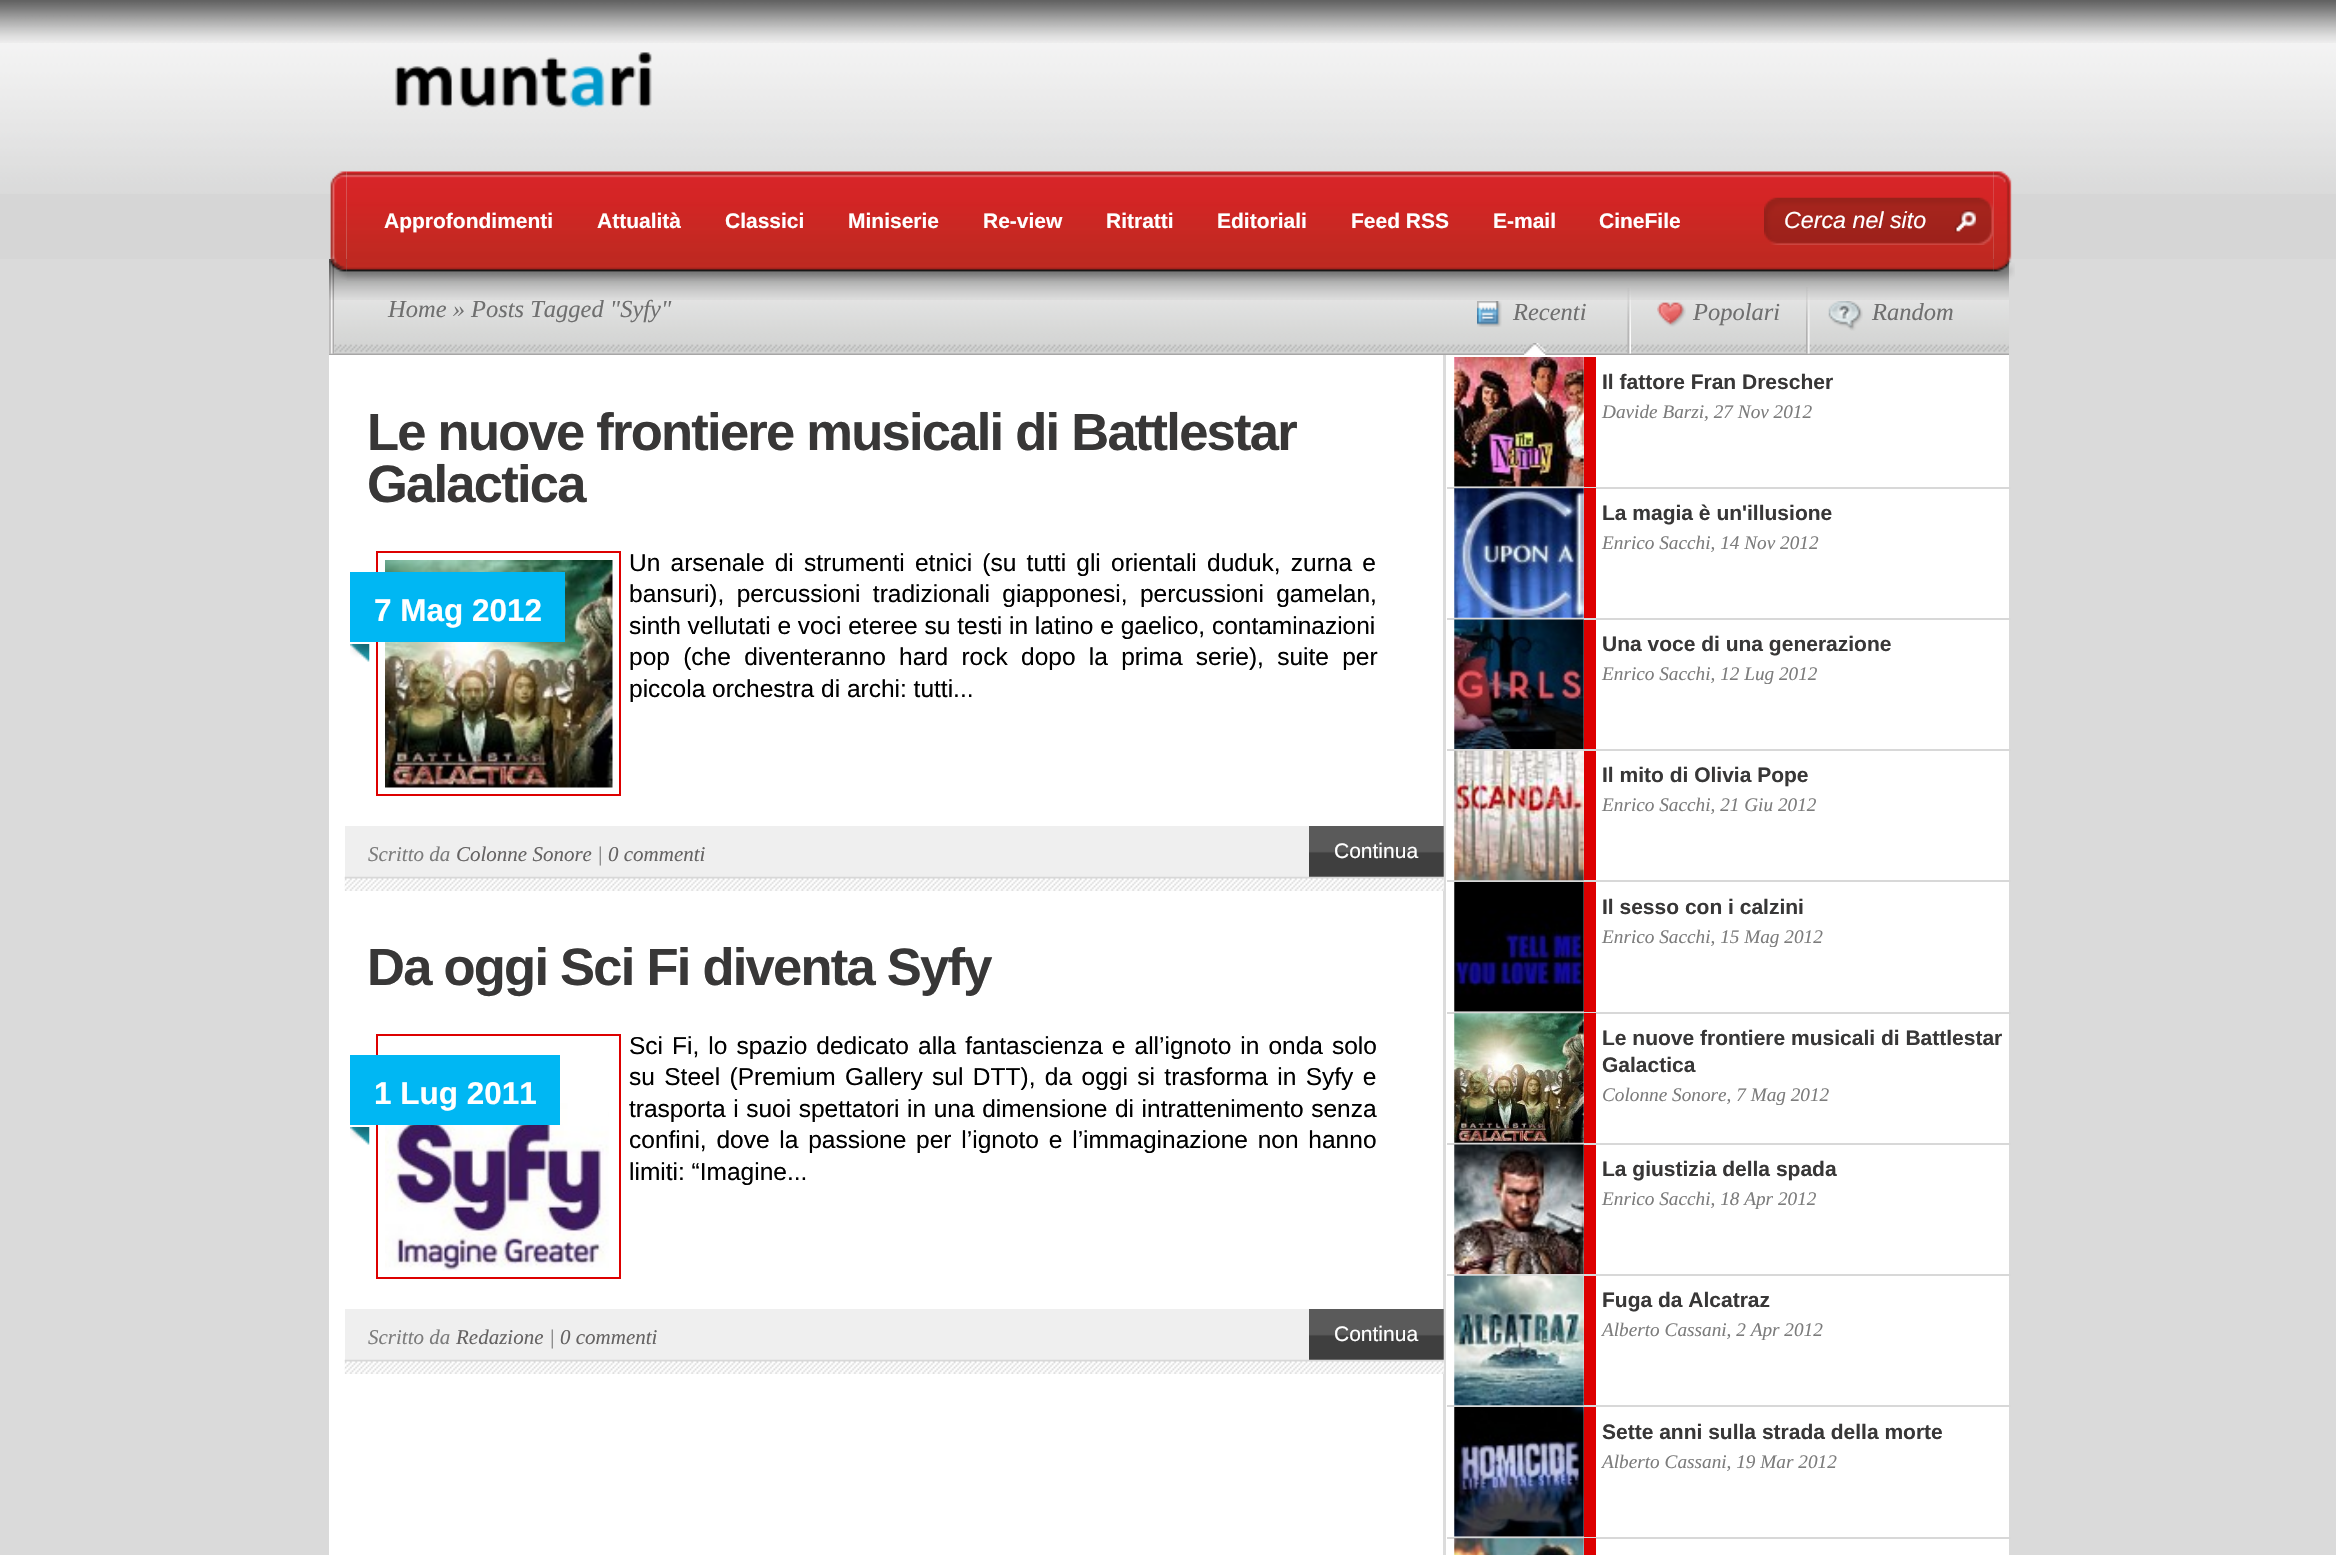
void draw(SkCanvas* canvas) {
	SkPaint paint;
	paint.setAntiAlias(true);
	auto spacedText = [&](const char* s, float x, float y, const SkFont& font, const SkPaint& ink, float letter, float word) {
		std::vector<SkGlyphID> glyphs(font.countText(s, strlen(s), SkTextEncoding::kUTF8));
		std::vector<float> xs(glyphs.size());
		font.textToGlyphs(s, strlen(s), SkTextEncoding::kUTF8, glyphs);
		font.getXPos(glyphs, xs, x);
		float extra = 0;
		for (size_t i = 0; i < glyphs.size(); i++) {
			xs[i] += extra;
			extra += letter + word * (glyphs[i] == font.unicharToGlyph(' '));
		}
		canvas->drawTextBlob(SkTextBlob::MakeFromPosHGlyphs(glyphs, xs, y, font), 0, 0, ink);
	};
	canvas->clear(0xffd6d6d6);
	canvas->drawImageRect(SkImages::DeferredFromEncodedData(SkData::MakeFromFileName("img1.png")), SkRect::MakeXYWH(0, 0, 2336, 194), SkSamplingOptions());
	canvas->drawImageRect(SkImages::DeferredFromEncodedData(SkData::MakeFromFileName("img2.png")), SkRect::MakeXYWH(395, 52, 257, 56), SkSamplingOptions());
	paint.setColor(0xffdadada);
	canvas->drawRect(SkRect::MakeXYWH(0, 259, 2336, 1296), paint);
	canvas->drawImageRect(SkImages::DeferredFromEncodedData(SkData::MakeFromFileName("img9.png")), SkRect::MakeXYWH(329, 259, 1680, 96), SkSamplingOptions());
	canvas->drawImageRect(SkImages::DeferredFromEncodedData(SkData::MakeFromFileName("img11.png")), SkRect::MakeXYWH(329, 259, 6, 95), SkSamplingOptions());
	SkFont f1(fontMgr->matchFamilyStyle("Liberation Serif", SkFontStyle::Italic()), 24.5);
	f1.setSubpixel(true);
	paint.setColor(0xff6f6f6f);
	canvas->drawString("Home » Posts Tagged \"Syfy\"", 388, 317, f1, paint);
	canvas->drawImageRect(SkImages::DeferredFromEncodedData(SkData::MakeFromFileName("img12.png")), SkRect::MakeXYWH(1627, 288, 4, 66), SkSamplingOptions());
	canvas->drawImageRect(SkImages::DeferredFromEncodedData(SkData::MakeFromFileName("img15.png")), SkRect::MakeXYWH(1806, 287, 4, 67), SkSamplingOptions());
	canvas->drawImageRect(SkImages::DeferredFromEncodedData(SkData::MakeFromFileName("img10.png")), SkRect::MakeXYWH(329, 259, 1680, 41), SkSamplingOptions());
	canvas->drawImageRect(SkImages::DeferredFromEncodedData(SkData::MakeFromFileName("img3.png")), SkRect::MakeXYWH(329, 171, 18, 109), SkSamplingOptions());
	canvas->drawImageRect(SkImages::DeferredFromEncodedData(SkData::MakeFromFileName("img4.png")), SkRect::MakeXYWH(346, 171, 1648, 110), SkSamplingOptions());
	SkFont f2(fontMgr->matchFamilyStyle("Liberation Sans", SkFontStyle::Bold()), 21);
	f2.setSubpixel(true);
	paint.setColor(0xffffffff);
	canvas->drawString("Approfondimenti", 384, 228, f2, paint);
	canvas->drawString("Attualità", 597, 228, f2, paint);
	canvas->drawString("Classici", 725, 228, f2, paint);
	canvas->drawString("Miniserie", 848, 228, f2, paint);
	canvas->drawString("Re-view", 983, 228, f2, paint);
	canvas->drawString("Ritratti", 1106, 228, f2, paint);
	canvas->drawString("Editoriali", 1217, 228, f2, paint);
	canvas->drawString("Feed RSS", 1351, 228, f2, paint);
	canvas->drawString("E-mail", 1493, 228, f2, paint);
	canvas->drawString("CineFile", 1599, 228, f2, paint);
	canvas->drawImageRect(SkImages::DeferredFromEncodedData(SkData::MakeFromFileName("img5.png")), SkRect::MakeXYWH(1764, 197, 229, 48), SkSamplingOptions());
	SkFont f3(fontMgr->matchFamilyStyle("Liberation Sans", SkFontStyle::Italic()), 23.25);
	f3.setSubpixel(true);
	canvas->drawString("Cerca nel sito", 1784, 228, f3, paint);
	canvas->drawImageRect(SkImages::DeferredFromEncodedData(SkData::MakeFromFileName("img6.png")), SkRect::MakeXYWH(1954, 210, 22, 23), SkSamplingOptions());
	canvas->drawImageRect(SkImages::DeferredFromEncodedData(SkData::MakeFromFileName("img7.png")), SkRect::MakeXYWH(1993, 171, 22, 110), SkSamplingOptions());
	canvas->drawImageRect(SkImages::DeferredFromEncodedData(SkData::MakeFromFileName("img8.png")), SkRect::MakeXYWH(0, 0, 2336, 43), SkSamplingOptions());
	canvas->drawRect(SkRect::MakeXYWH(329, 355, 1680, 1200), paint);
	paint.setColor(0xffdcdcdc);
	canvas->drawRect(SkRect::MakeXYWH(1443, 355, 3, 1200), paint);
	canvas->drawImageRect(SkImages::DeferredFromEncodedData(SkData::MakeFromFileName("img13.png")), SkRect::MakeXYWH(1524, 343, 22, 12), SkSamplingOptions());
	canvas->drawImageRect(SkImages::DeferredFromEncodedData(SkData::MakeFromFileName("img14.png")), SkRect::MakeXYWH(1477, 301, 25, 26), SkSamplingOptions());
	paint.setColor(0xff6f6f6f);
	canvas->drawString("Recenti", 1513, 320, f1, paint);
	canvas->drawImageRect(SkImages::DeferredFromEncodedData(SkData::MakeFromFileName("img16.png")), SkRect::MakeXYWH(1657, 302, 29, 25), SkSamplingOptions());
	canvas->drawString("Popolari", 1693, 320, f1, paint);
	canvas->drawImageRect(SkImages::DeferredFromEncodedData(SkData::MakeFromFileName("img17.png")), SkRect::MakeXYWH(1828, 301, 35, 30), SkSamplingOptions());
	canvas->drawString("Random", 1872, 320, f1, paint);
	paint.setColor(0xffd8d8d8);
	canvas->drawRect(SkRect::MakeXYWH(1447, 487, 564, 2), paint);
	paint.setColor(0xffdd0000);
	canvas->drawRect(SkRect::MakeXYWH(1584, 357, 12, 130), paint);
	canvas->drawImageRect(SkImages::DeferredFromEncodedData(SkData::MakeFromFileName("img18.png")), SkRect::MakeXYWH(1454, 357, 130, 130), SkSamplingOptions());
	paint.setColor(0xff383737);
	canvas->drawString("Il fattore Fran Drescher", 1602, 389, f2, paint);
	SkFont f4(fontMgr->matchFamilyStyle("Liberation Serif", SkFontStyle::Italic()), 19.25);
	f4.setSubpixel(true);
	paint.setColor(0xff7c7c7c);
	canvas->drawString("Davide Barzi, 27 Nov 2012", 1602, 418, f4, paint);
	paint.setColor(0xffd8d8d8);
	canvas->drawRect(SkRect::MakeXYWH(1447, 618, 564, 2), paint);
	paint.setColor(0xffdd0000);
	canvas->drawRect(SkRect::MakeXYWH(1584, 488, 12, 130), paint);
	canvas->drawImageRect(SkImages::DeferredFromEncodedData(SkData::MakeFromFileName("img19.png")), SkRect::MakeXYWH(1454, 488, 130, 130), SkSamplingOptions());
	paint.setColor(0xff383737);
	canvas->drawString("La magia è un'illusione", 1602, 520, f2, paint);
	paint.setColor(0xff7c7c7c);
	canvas->drawString("Enrico Sacchi, 14 Nov 2012", 1602, 549, f4, paint);
	paint.setColor(0xffd8d8d8);
	canvas->drawRect(SkRect::MakeXYWH(1447, 749, 564, 2), paint);
	paint.setColor(0xffdd0000);
	canvas->drawRect(SkRect::MakeXYWH(1584, 620, 12, 129), paint);
	canvas->drawImageRect(SkImages::DeferredFromEncodedData(SkData::MakeFromFileName("img20.png")), SkRect::MakeXYWH(1454, 619, 130, 130), SkSamplingOptions());
	paint.setColor(0xff383737);
	canvas->drawString("Una voce di una generazione", 1602, 651, f2, paint);
	paint.setColor(0xff7c7c7c);
	canvas->drawString("Enrico Sacchi, 12 Lug 2012", 1602, 680, f4, paint);
	paint.setColor(0xffd8d8d8);
	canvas->drawRect(SkRect::MakeXYWH(1447, 880, 564, 2), paint);
	paint.setColor(0xffdd0000);
	canvas->drawRect(SkRect::MakeXYWH(1584, 751, 12, 129), paint);
	canvas->drawImageRect(SkImages::DeferredFromEncodedData(SkData::MakeFromFileName("img21.png")), SkRect::MakeXYWH(1454, 750, 130, 131), SkSamplingOptions());
	paint.setColor(0xff383737);
	canvas->drawString("Il mito di Olivia Pope", 1602, 782, f2, paint);
	paint.setColor(0xff7c7c7c);
	canvas->drawString("Enrico Sacchi, 21 Giu 2012", 1602, 811, f4, paint);
	paint.setColor(0xffd8d8d8);
	canvas->drawRect(SkRect::MakeXYWH(1447, 1012, 564, 2), paint);
	paint.setColor(0xffdd0000);
	canvas->drawRect(SkRect::MakeXYWH(1584, 882, 12, 130), paint);
	canvas->drawImageRect(SkImages::DeferredFromEncodedData(SkData::MakeFromFileName("img22.png")), SkRect::MakeXYWH(1454, 882, 130, 130), SkSamplingOptions());
	paint.setColor(0xff383737);
	canvas->drawString("Il sesso con i calzini", 1602, 914, f2, paint);
	paint.setColor(0xff7c7c7c);
	canvas->drawString("Enrico Sacchi, 15 Mag 2012", 1602, 943, f4, paint);
	paint.setColor(0xffd8d8d8);
	canvas->drawRect(SkRect::MakeXYWH(1447, 1143, 564, 2), paint);
	paint.setColor(0xffdd0000);
	canvas->drawRect(SkRect::MakeXYWH(1584, 1013, 12, 130), paint);
	canvas->drawImageRect(SkImages::DeferredFromEncodedData(SkData::MakeFromFileName("img23.png")), SkRect::MakeXYWH(1454, 1013, 130, 130), SkSamplingOptions());
	paint.setColor(0xff383737);
	canvas->drawString("Le nuove frontiere musicali di Battlestar", 1602, 1045, f2, paint);
	canvas->drawString("Galactica", 1602, 1072, f2, paint);
	paint.setColor(0xff7c7c7c);
	canvas->drawString("Colonne Sonore, 7 Mag 2012", 1602, 1101, f4, paint);
	paint.setColor(0xffd8d8d8);
	canvas->drawRect(SkRect::MakeXYWH(1447, 1274, 564, 2), paint);
	paint.setColor(0xffdd0000);
	canvas->drawRect(SkRect::MakeXYWH(1584, 1145, 12, 129), paint);
	canvas->drawImageRect(SkImages::DeferredFromEncodedData(SkData::MakeFromFileName("img24.png")), SkRect::MakeXYWH(1454, 1144, 130, 130), SkSamplingOptions());
	paint.setColor(0xff383737);
	canvas->drawString("La giustizia della spada", 1602, 1176, f2, paint);
	paint.setColor(0xff7c7c7c);
	canvas->drawString("Enrico Sacchi, 18 Apr 2012", 1602, 1205, f4, paint);
	paint.setColor(0xffd8d8d8);
	canvas->drawRect(SkRect::MakeXYWH(1447, 1405, 564, 2), paint);
	paint.setColor(0xffdd0000);
	canvas->drawRect(SkRect::MakeXYWH(1584, 1276, 12, 129), paint);
	canvas->drawImageRect(SkImages::DeferredFromEncodedData(SkData::MakeFromFileName("img25.png")), SkRect::MakeXYWH(1454, 1275, 130, 131), SkSamplingOptions());
	paint.setColor(0xff383737);
	canvas->drawString("Fuga da Alcatraz", 1602, 1307, f2, paint);
	paint.setColor(0xff7c7c7c);
	canvas->drawString("Alberto Cassani, 2 Apr 2012", 1602, 1336, f4, paint);
	paint.setColor(0xffd8d8d8);
	canvas->drawRect(SkRect::MakeXYWH(1447, 1537, 564, 2), paint);
	paint.setColor(0xffdd0000);
	canvas->drawRect(SkRect::MakeXYWH(1584, 1407, 12, 130), paint);
	canvas->drawImageRect(SkImages::DeferredFromEncodedData(SkData::MakeFromFileName("img26.png")), SkRect::MakeXYWH(1454, 1407, 130, 130), SkSamplingOptions());
	paint.setColor(0xff383737);
	canvas->drawString("Sette anni sulla strada della morte", 1602, 1439, f2, paint);
	paint.setColor(0xff7c7c7c);
	canvas->drawString("Alberto Cassani, 19 Mar 2012", 1602, 1468, f4, paint);
	paint.setColor(0xffdd0000);
	canvas->drawRect(SkRect::MakeXYWH(1584, 1538, 12, 17), paint);
	canvas->drawImageRect(SkImages::DeferredFromEncodedData(SkData::MakeFromFileName("img27.png")), SkRect::MakeXYWH(1454, 1538, 130, 17), SkSamplingOptions());
	SkFont f5(fontMgr->matchFamilyStyle("Liberation Sans", SkFontStyle::Bold()), 52.5);
	f5.setSubpixel(true);
	paint.setColor(0xff383737);
	spacedText("Le nuove frontiere musicali di Battlestar", 367, 450, f5, paint, -1.75, 0);
	spacedText("Galactica", 367, 502, f5, paint, -1.75, 0);
	paint.setStroke(true);
	paint.setStrokeWidth(2);
	paint.setColor(0xffdd0000);
	canvas->drawRect(SkRect::MakeXYWH(377, 552, 243, 243), paint);
	canvas->drawImageRect(SkImages::DeferredFromEncodedData(SkData::MakeFromFileName("img28.png")), SkRect::MakeXYWH(385, 560, 228, 228), SkSamplingOptions());
	SkFont f6(fontMgr->matchFamilyStyle("Liberation Sans", SkFontStyle::Normal()), 24.5);
	f6.setSubpixel(true);
	paint.setStroke(false);
	paint.setColor(0xff000000);
	spacedText("Un arsenale di strumenti etnici (su tutti gli orientali duduk, zurna e", 629, 571, f6, paint, 0, 3.4);
	spacedText("bansuri), percussioni tradizionali giapponesi, percussioni gamelan,", 629, 602, f6, paint, 0, 5.5);
	canvas->drawString("sinth vellutati e voci eteree su testi in latino e gaelico, contaminazioni", 629, 634, f6, paint);
	spacedText("pop (che diventeranno hard rock dopo la prima serie), suite per", 629, 665, f6, paint, 0, 6.5);
	canvas->drawString("piccola orchestra di archi: tutti...", 629, 697, f6, paint);
	canvas->drawImageRect(SkImages::DeferredFromEncodedData(SkData::MakeFromFileName("img29.png")), SkRect::MakeXYWH(350, 644, 20, 18), SkSamplingOptions());
	paint.setColor(0xff00b7f3);
	canvas->drawRect(SkRect::MakeXYWH(350, 572, 215, 70), paint);
	SkFont f7(fontMgr->matchFamilyStyle("Liberation Sans", SkFontStyle::Bold()), 31.5);
	f7.setSubpixel(true);
	paint.setColor(0xffffffff);
	canvas->drawString("7 Mag 2012", 374, 621, f7, paint);
	paint.setColor(0xffefefef);
	canvas->drawRect(SkRect::MakeXYWH(345, 826, 1099, 65), paint);
	canvas->drawImageRect(SkImages::DeferredFromEncodedData(SkData::MakeFromFileName("img30.png")), SkRect::MakeXYWH(344, 876, 1100, 15), SkSamplingOptions());
	SkFont f8(fontMgr->matchFamilyStyle("Liberation Serif", SkFontStyle::Italic()), 21);
	f8.setSubpixel(true);
	paint.setColor(0xff7c7c7c);
	canvas->drawString("Scritto da", 368, 861, f8, paint);
	paint.setColor(0xff656363);
	canvas->drawString("Colonne Sonore", 456, 861, f8, paint);
	paint.setColor(0xff7c7c7c);
	canvas->drawString("|", 597, 861, f8, paint);
	paint.setColor(0xff656363);
	canvas->drawString("0 commenti", 608, 861, f8, paint);
	canvas->drawImageRect(SkImages::DeferredFromEncodedData(SkData::MakeFromFileName("img31.png")), SkRect::MakeXYWH(1309, 826, 135, 51), SkSamplingOptions());
	SkFont f9(fontMgr->matchFamilyStyle("Liberation Sans", SkFontStyle::Normal()), 21);
	f9.setSubpixel(true);
	paint.setColor(0xffffffff);
	canvas->drawString("Continua", 1334, 858, f9, paint);
	paint.setColor(0xff383737);
	spacedText("Da oggi Sci Fi diventa Syfy", 367, 985, f5, paint, -1.75, 0);
	paint.setStroke(true);
	paint.setColor(0xffdd0000);
	canvas->drawRect(SkRect::MakeXYWH(377, 1035, 243, 243), paint);
	canvas->drawImageRect(SkImages::DeferredFromEncodedData(SkData::MakeFromFileName("img32.png")), SkRect::MakeXYWH(385, 1103, 224, 168), SkSamplingOptions());
	paint.setStroke(false);
	paint.setColor(0xff000000);
	spacedText("Sci Fi, lo spazio dedicato alla fantascienza e all’ignoto in onda solo", 629, 1054, f6, paint, 0, 2.25);
	spacedText("su Steel (Premium Gallery sul DTT), da oggi si trasforma in Syfy e", 629, 1085, f6, paint, 0, 2.6);
	spacedText("trasporta i suoi spettatori in una dimensione di intrattenimento senza", 629, 1117, f6, paint, 0, 0.75);
	spacedText("confini, dove la passione per l’ignoto e l’immaginazione non hanno", 629, 1148, f6, paint, 0, 3);
	canvas->drawString("limiti: “Imagine...", 629, 1180, f6, paint);
	canvas->drawImageRect(SkImages::DeferredFromEncodedData(SkData::MakeFromFileName("img29.png")), SkRect::MakeXYWH(350, 1127, 20, 18), SkSamplingOptions());
	paint.setColor(0xff00b7f3);
	canvas->drawRect(SkRect::MakeXYWH(350, 1055, 210, 70), paint);
	paint.setColor(0xffffffff);
	canvas->drawString("1 Lug 2011", 374, 1104, f7, paint);
	paint.setColor(0xffefefef);
	canvas->drawRect(SkRect::MakeXYWH(345, 1309, 1099, 65), paint);
	canvas->drawImageRect(SkImages::DeferredFromEncodedData(SkData::MakeFromFileName("img33.png")), SkRect::MakeXYWH(344, 1359, 1100, 15), SkSamplingOptions());
	paint.setColor(0xff7c7c7c);
	canvas->drawString("Scritto da", 368, 1344, f8, paint);
	paint.setColor(0xff656363);
	canvas->drawString("Redazione", 456, 1344, f8, paint);
	paint.setColor(0xff7c7c7c);
	canvas->drawString("|", 549, 1344, f8, paint);
	paint.setColor(0xff656363);
	canvas->drawString("0 commenti", 560, 1344, f8, paint);
	canvas->drawImageRect(SkImages::DeferredFromEncodedData(SkData::MakeFromFileName("img31.png")), SkRect::MakeXYWH(1309, 1309, 135, 51), SkSamplingOptions());
	paint.setColor(0xffffffff);
	canvas->drawString("Continua", 1334, 1341, f9, paint);
}
